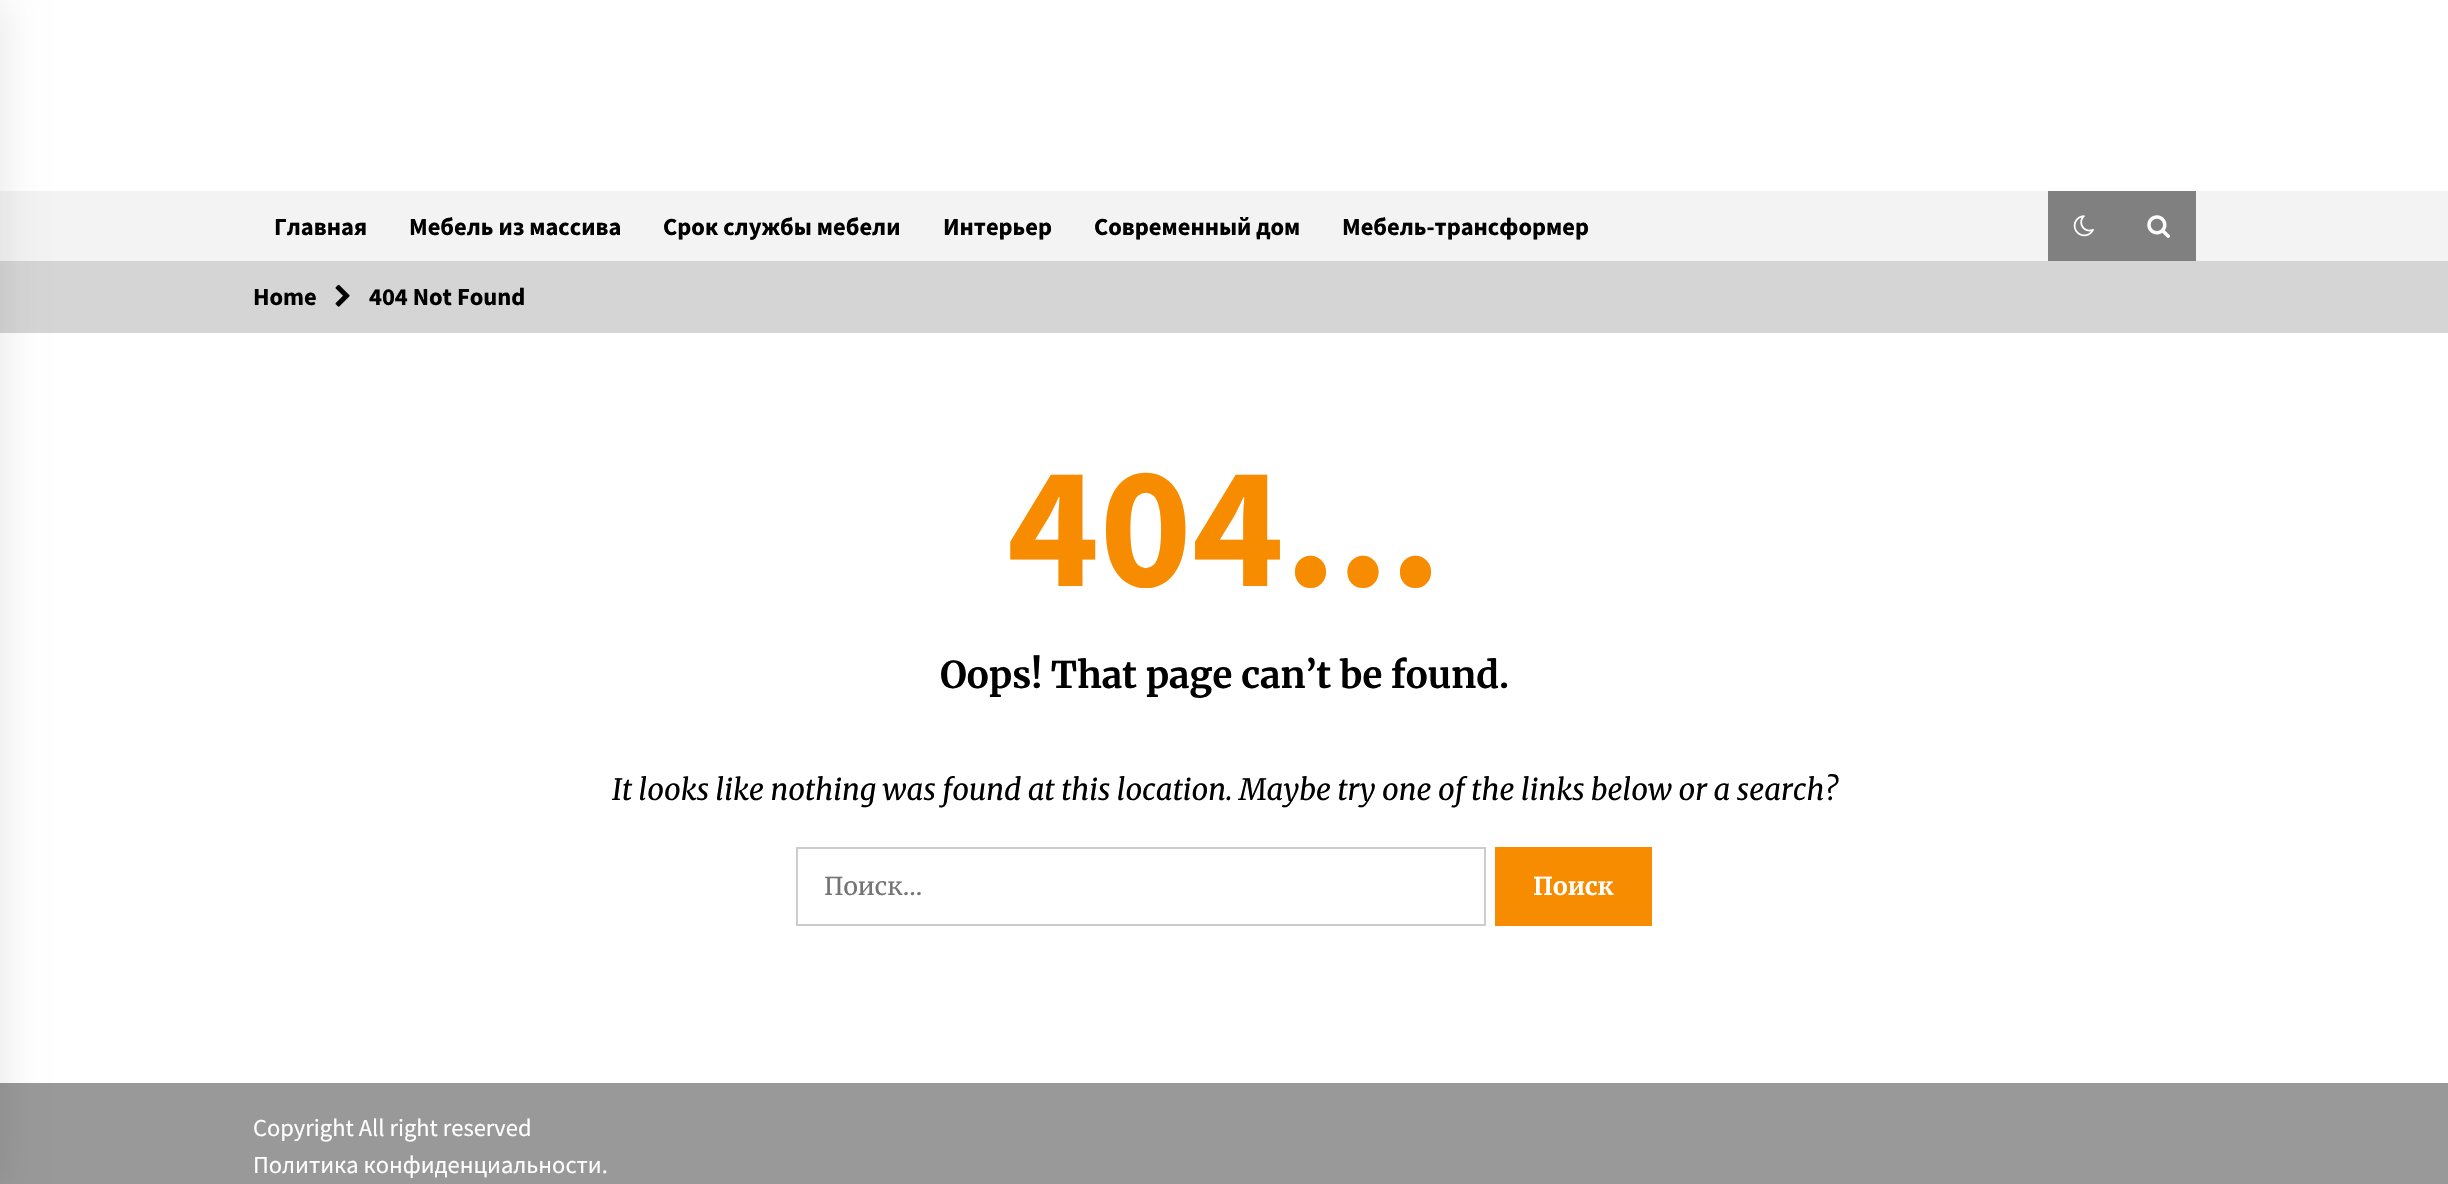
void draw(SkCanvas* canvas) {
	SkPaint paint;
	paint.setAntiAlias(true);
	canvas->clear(0xffffffff);
	paint.setColor(0xfff3f3f3);
	canvas->drawRect(SkRect::MakeXYWH(0, 191, 2448, 70), paint);
	paint.setColor(0xffd5d5d5);
	canvas->drawRect(SkRect::MakeXYWH(0, 261, 2448, 72), paint);
	paint.setColor(0xff999999);
	canvas->drawRect(SkRect::MakeXYWH(0, 1083, 2448, 101), paint);
	paint.setColor(0x1a000000);
	paint.setMaskFilter(SkMaskFilter::MakeBlur(kNormal_SkBlurStyle, 22));
	canvas->drawRect(SkRect::MakeXYWH(-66, 0, 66, 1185), paint);
	paint.setMaskFilter(nullptr);
	SkFont f1(fontMgr->matchFamilyStyle("Source Sans Pro", SkFontStyle::Bold()), 24.5);
	f1.setSubpixel(true);
	paint.setColor(0xff000000);
	canvas->drawString("Главная", 274, 235, f1, paint);
	canvas->drawString("Мебель из массива", 409, 235, f1, paint);
	canvas->drawString("Срок службы мебели", 663, 235, f1, paint);
	canvas->drawString("Интерьер", 943, 235, f1, paint);
	canvas->drawString("Современный дом", 1094, 235, f1, paint);
	canvas->drawString("Мебель-трансформер", 1342, 235, f1, paint);
	paint.setColor(0xff808080);
	canvas->drawRect(SkRect::MakeXYWH(2048, 191, 148, 70), paint);
	canvas->drawImageRect(SkImages::DeferredFromEncodedData(SkData::MakeFromFileName("img1.png")), SkRect::MakeXYWH(2073, 215, 21, 22), SkSamplingOptions());
	canvas->drawImageRect(SkImages::DeferredFromEncodedData(SkData::MakeFromFileName("img2.png")), SkRect::MakeXYWH(2147, 215, 23, 23), SkSamplingOptions());
	paint.setColor(0xff000000);
	canvas->drawString("Home", 253, 305, f1, paint);
	canvas->drawImageRect(SkImages::DeferredFromEncodedData(SkData::MakeFromFileName("img3.png")), SkRect::MakeXYWH(335, 284, 15, 23), SkSamplingOptions());
	canvas->drawString("404 Not Found", 369, 305, f1, paint);
	SkFont f2(fontMgr->matchFamilyStyle("Source Sans Pro", SkFontStyle::Bold()), 175);
	f2.setSubpixel(true);
	paint.setColor(0xfff88c00);
	canvas->drawString("404...", 1007, 586, f2, paint);
	SkFont f3(fontMgr->matchFamilyStyle("Merriweather", SkFontStyle::Bold()), 36.75);
	f3.setSubpixel(true);
	paint.setColor(0xff000000);
	canvas->drawString("Oops! That page can’t be found.", 940, 688, f3, paint);
	SkFont f4(fontMgr->matchFamilyStyle("Merriweather", SkFontStyle(300, SkFontStyle::kNormal_Width, SkFontStyle::kItalic_Slant)), 29.4);
	f4.setSubpixel(true);
	canvas->drawString("It looks like nothing was found at this location. Maybe try one of the links below or a search?", 612, 800, f4, paint);
	paint.setStroke(true);
	paint.setStrokeWidth(2);
	paint.setColor(0xffcccccc);
	canvas->drawRect(SkRect::MakeXYWH(797, 848, 688, 77), paint);
	SkFont f5(fontMgr->matchFamilyStyle("Merriweather", SkFontStyle::Normal()), 24.5);
	f5.setSubpixel(true);
	paint.setStroke(false);
	paint.setColor(0xff757575);
	canvas->drawString("Поиск…", 824, 895, f5, paint);
	paint.setColor(0xfff88c00);
	canvas->drawRect(SkRect::MakeXYWH(1495, 847, 157, 79), paint);
	SkFont f6(fontMgr->matchFamilyStyle("Merriweather", SkFontStyle::Bold()), 24.5);
	f6.setSubpixel(true);
	paint.setColor(0xffffffff);
	canvas->drawString("Поиск", 1533, 895, f6, paint);
	SkFont f7(fontMgr->matchFamilyStyle("Source Sans Pro", SkFontStyle::Normal()), 24.5);
	f7.setSubpixel(true);
	canvas->drawString("Copyright All right reserved", 253, 1136, f7, paint);
	canvas->drawString("Политика конфиденциальности.", 253, 1173, f7, paint);
}
